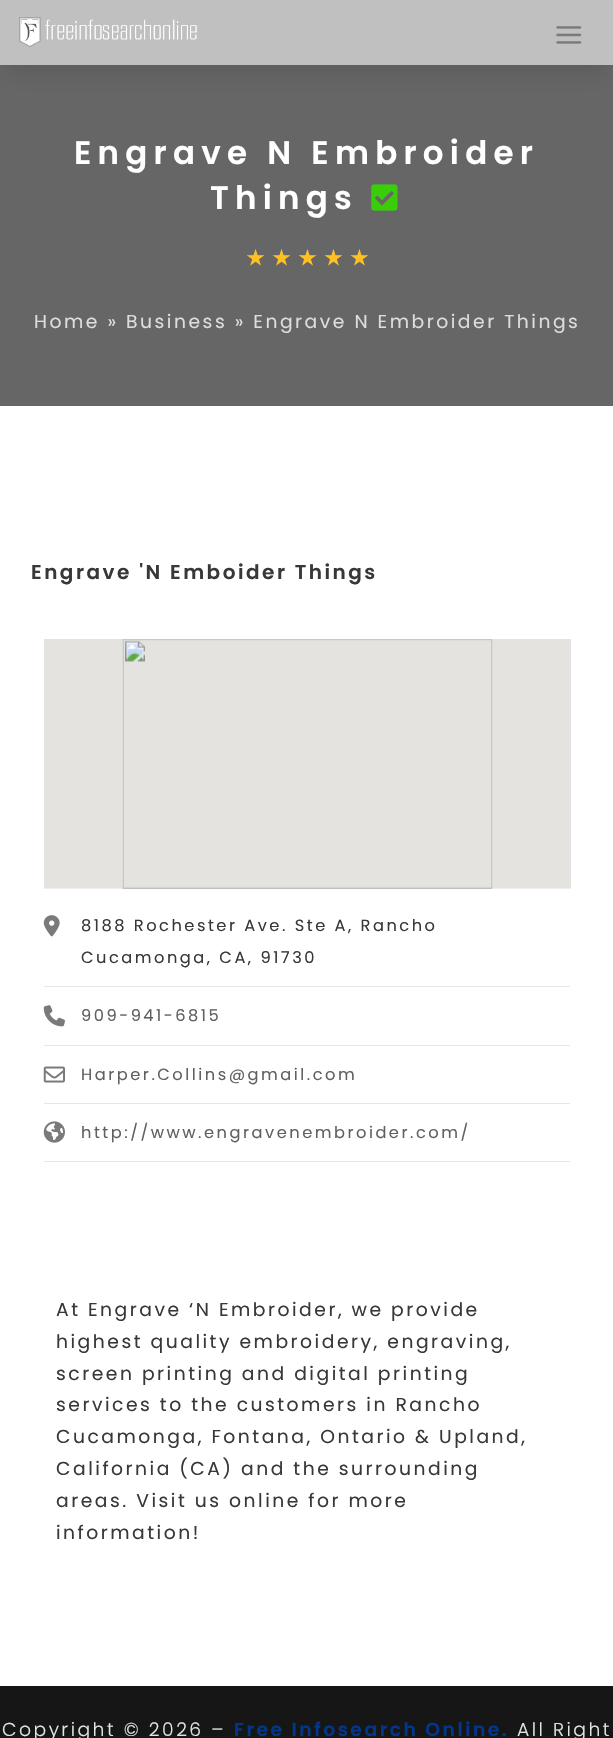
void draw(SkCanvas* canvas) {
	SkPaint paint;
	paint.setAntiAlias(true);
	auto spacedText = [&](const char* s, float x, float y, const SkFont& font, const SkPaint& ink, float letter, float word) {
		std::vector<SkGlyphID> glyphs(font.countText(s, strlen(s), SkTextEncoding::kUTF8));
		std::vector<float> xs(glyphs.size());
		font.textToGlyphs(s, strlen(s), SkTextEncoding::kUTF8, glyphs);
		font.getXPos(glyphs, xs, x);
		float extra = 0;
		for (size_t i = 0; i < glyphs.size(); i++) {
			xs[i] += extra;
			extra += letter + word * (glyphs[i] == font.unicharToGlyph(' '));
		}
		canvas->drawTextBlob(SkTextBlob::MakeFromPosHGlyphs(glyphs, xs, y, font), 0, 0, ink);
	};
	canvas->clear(0xffffffff);
	paint.setColor(0xff666666);
	canvas->drawRect(SkRect::MakeXYWH(0, 65, 613, 341), paint);
	paint.setColor(0x1a000000);
	paint.setMaskFilter(SkMaskFilter::MakeBlur(kNormal_SkBlurStyle, 11));
	canvas->drawRect(SkRect::MakeXYWH(8, 23, 598, 50), paint);
	paint.setMaskFilter(nullptr);
	paint.setColor(0xffc0c0c0);
	canvas->drawRect(SkRect::MakeXYWH(0, 0, 613, 65), paint);
	canvas->drawImageRect(SkImages::DeferredFromEncodedData(SkData::MakeFromFileName("img1.png")), SkRect::MakeXYWH(19, 17, 178, 30), SkSamplingOptions());
	canvas->drawImageRect(SkImages::DeferredFromEncodedData(SkData::MakeFromFileName("img2.png")), SkRect::MakeXYWH(556, 26, 26, 18), SkSamplingOptions());
	SkFont f1(fontMgr->matchFamilyStyle("Poppins", SkFontStyle(600, SkFontStyle::kNormal_Width, SkFontStyle::kUpright_Slant)), 32.5);
	f1.setSubpixel(true);
	paint.setColor(0xffffffff);
	spacedText("Engrave N Embroider", 74, 164, f1, paint, 6.25, 0);
	spacedText("Things", 210, 209, f1, paint, 6.25, 0);
	canvas->drawImageRect(SkImages::DeferredFromEncodedData(SkData::MakeFromFileName("img3.png")), SkRect::MakeXYWH(371, 184, 27, 27), SkSamplingOptions());
	canvas->drawImageRect(SkImages::DeferredFromEncodedData(SkData::MakeFromFileName("img4.png")), SkRect::MakeXYWH(246, 249, 123, 17), SkSamplingOptions());
	SkFont f2(fontMgr->matchFamilyStyle("Poppins", SkFontStyle::Normal()), 18.75);
	f2.setSubpixel(true);
	paint.setColor(0xffdddddd);
	spacedText("Home » Business » Engrave N Embroider Things", 34, 328, f2, paint, 2.5, 0);
	SkFont f3(fontMgr->matchFamilyStyle("Poppins", SkFontStyle(600, SkFontStyle::kNormal_Width, SkFontStyle::kUpright_Slant)), 20);
	f3.setSubpixel(true);
	paint.setColor(0xff383838);
	spacedText("Engrave 'N Emboider Things", 31, 579, f3, paint, 2.5, 0);
	canvas->drawImageRect(SkImages::DeferredFromEncodedData(SkData::MakeFromFileName("img5.png")), SkRect::MakeXYWH(44, 639, 527, 250), SkSamplingOptions());
	paint.setColor(0xffe6e6e6);
	canvas->drawRect(SkRect::MakeXYWH(44, 986, 526, 1), paint);
	canvas->drawImageRect(SkImages::DeferredFromEncodedData(SkData::MakeFromFileName("img6.png")), SkRect::MakeXYWH(43, 915, 17, 22), SkSamplingOptions());
	SkFont f4(fontMgr->matchFamilyStyle("Poppins", SkFontStyle::Normal()), 16.25);
	f4.setSubpixel(true);
	paint.setColor(0xff383838);
	spacedText("8188 Rochester Ave. Ste A, Rancho", 81, 931, f4, paint, 2.5, 0);
	spacedText("Cucamonga, CA, 91730", 81, 963, f4, paint, 2.5, 0);
	paint.setColor(0xffe6e6e6);
	canvas->drawRect(SkRect::MakeXYWH(44, 1045, 526, 1), paint);
	canvas->drawImageRect(SkImages::DeferredFromEncodedData(SkData::MakeFromFileName("img7.png")), SkRect::MakeXYWH(43, 1005, 22, 22), SkSamplingOptions());
	paint.setColor(0xff606060);
	spacedText("909-941-6815", 81, 1021, f4, paint, 2.5, 0);
	paint.setColor(0xffe6e6e6);
	canvas->drawRect(SkRect::MakeXYWH(44, 1103, 526, 1), paint);
	canvas->drawImageRect(SkImages::DeferredFromEncodedData(SkData::MakeFromFileName("img8.png")), SkRect::MakeXYWH(43, 1066, 22, 17), SkSamplingOptions());
	paint.setColor(0xff606060);
	spacedText("Harper.Collins@gmail.com", 81, 1080, f4, paint, 2.5, 0);
	paint.setColor(0xffe6e6e6);
	canvas->drawRect(SkRect::MakeXYWH(44, 1161, 526, 1), paint);
	canvas->drawImageRect(SkImages::DeferredFromEncodedData(SkData::MakeFromFileName("img9.png")), SkRect::MakeXYWH(43, 1121, 22, 22), SkSamplingOptions());
	paint.setColor(0xff606060);
	spacedText("http://www.engravenembroider.com/", 81, 1138, f4, paint, 2.5, 0);
	paint.setColor(0xff383838);
	spacedText("At Engrave ‘N Embroider, we provide", 56, 1316, f2, paint, 2.5, 0);
	spacedText("highest quality embroidery, engraving,", 56, 1348, f2, paint, 2.5, 0);
	spacedText("screen printing and digital printing", 56, 1380, f2, paint, 2.5, 0);
	spacedText("services to the customers in Rancho", 56, 1411, f2, paint, 2.5, 0);
	spacedText("Cucamonga, Fontana, Ontario & Upland,", 56, 1443, f2, paint, 2.5, 0);
	spacedText("California (CA) and the surrounding", 56, 1475, f2, paint, 2.5, 0);
	spacedText("areas. Visit us online for more", 56, 1507, f2, paint, 2.5, 0);
	spacedText("information!", 56, 1539, f2, paint, 2.5, 0);
	paint.setColor(0xff161616);
	canvas->drawRect(SkRect::MakeXYWH(0, 1686, 613, 52), paint);
	SkFont f5(fontMgr->matchFamilyStyle("Poppins", SkFontStyle(300, SkFontStyle::kNormal_Width, SkFontStyle::kUpright_Slant)), 18.75);
	f5.setSubpixel(true);
	paint.setColor(0xffe5e5e5);
	spacedText("Copyright © 2026 –", 2, 1736, f5, paint, 2.5, 0);
	SkFont f6(fontMgr->matchFamilyStyle("Poppins", SkFontStyle(600, SkFontStyle::kNormal_Width, SkFontStyle::kUpright_Slant)), 18.75);
	f6.setSubpixel(true);
	paint.setColor(0xff00378c);
	spacedText("Free Infosearch Online.", 234, 1736, f6, paint, 2.5, 0);
	paint.setColor(0xffe5e5e5);
	spacedText("All Right", 517, 1736, f5, paint, 2.5, 0);
}
